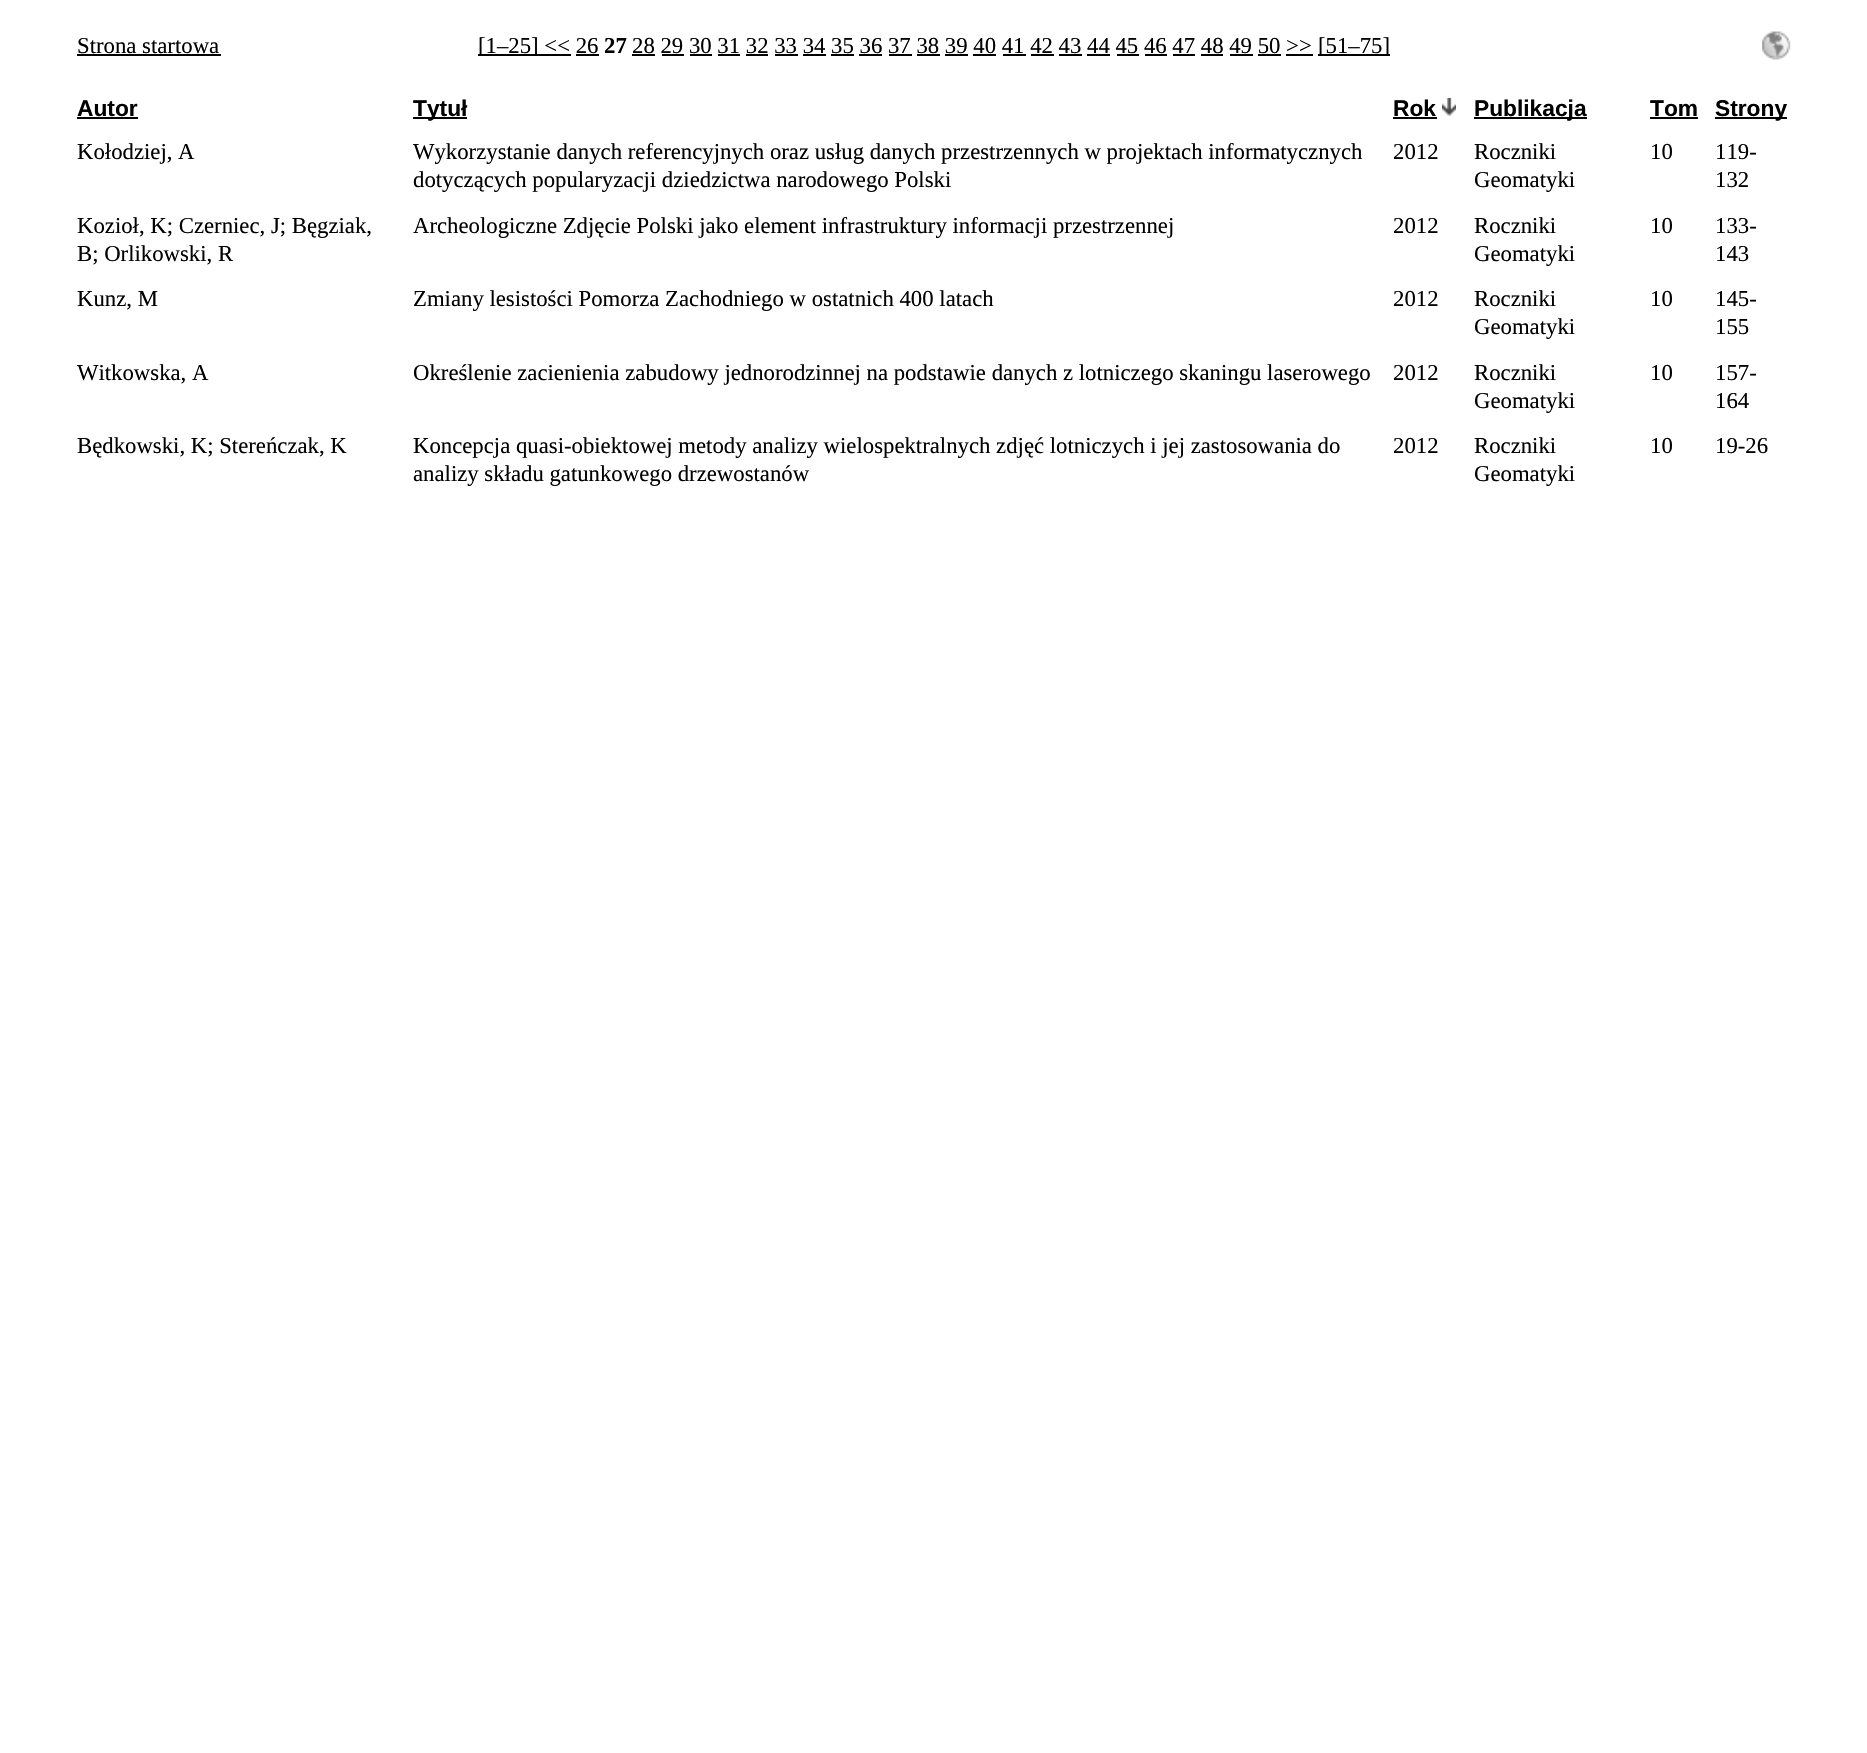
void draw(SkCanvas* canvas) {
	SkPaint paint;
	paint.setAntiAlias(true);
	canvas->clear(0xffffffff);
	SkFont f1(fontMgr->matchFamilyStyle("Liberation Serif", SkFontStyle::Normal()), 22.75);
	f1.setSubpixel(true);
	paint.setColor(0xff000000);
	canvas->drawString("Strona startowa", 77, 53, f1, paint);
	canvas->drawRect(SkRect::MakeXYWH(77, 54, 144, 2), paint);
	canvas->drawRect(SkRect::MakeXYWH(478, 54, 93, 2), paint);
	canvas->drawString("[1–25] << 26", 478, 53, f1, paint);
	SkFont f2(fontMgr->matchFamilyStyle("Liberation Serif", SkFontStyle::Bold()), 22.75);
	f2.setSubpixel(true);
	canvas->drawString("27", 604, 53, f2, paint);
	canvas->drawString("28 29 30 31 32 33 34 35 36 37 38 39 40 41 42 43 44 45 46 47 48 49 50 >>", 632, 53, f1, paint);
	canvas->drawRect(SkRect::MakeXYWH(632, 54, 23, 2), paint);
	canvas->drawRect(SkRect::MakeXYWH(1318, 54, 72, 2), paint);
	canvas->drawString("[51–75]", 1318, 53, f1, paint);
	canvas->drawRect(SkRect::MakeXYWH(576, 54, 23, 2), paint);
	canvas->drawRect(SkRect::MakeXYWH(662, 54, 22, 2), paint);
	canvas->drawRect(SkRect::MakeXYWH(690, 54, 22, 2), paint);
	canvas->drawRect(SkRect::MakeXYWH(718, 54, 22, 2), paint);
	canvas->drawRect(SkRect::MakeXYWH(746, 54, 22, 2), paint);
	canvas->drawRect(SkRect::MakeXYWH(775, 54, 23, 2), paint);
	canvas->drawRect(SkRect::MakeXYWH(803, 54, 23, 2), paint);
	canvas->drawRect(SkRect::MakeXYWH(831, 54, 23, 2), paint);
	canvas->drawRect(SkRect::MakeXYWH(859, 54, 23, 2), paint);
	canvas->drawRect(SkRect::MakeXYWH(889, 54, 23, 2), paint);
	canvas->drawRect(SkRect::MakeXYWH(917, 54, 23, 2), paint);
	canvas->drawRect(SkRect::MakeXYWH(945, 54, 23, 2), paint);
	canvas->drawRect(SkRect::MakeXYWH(973, 54, 23, 2), paint);
	canvas->drawRect(SkRect::MakeXYWH(1003, 54, 23, 2), paint);
	canvas->drawRect(SkRect::MakeXYWH(1031, 54, 23, 2), paint);
	canvas->drawRect(SkRect::MakeXYWH(1059, 54, 23, 2), paint);
	canvas->drawRect(SkRect::MakeXYWH(1087, 54, 23, 2), paint);
	canvas->drawRect(SkRect::MakeXYWH(1117, 54, 22, 2), paint);
	canvas->drawRect(SkRect::MakeXYWH(1145, 54, 22, 2), paint);
	canvas->drawRect(SkRect::MakeXYWH(1173, 54, 22, 2), paint);
	canvas->drawRect(SkRect::MakeXYWH(1201, 54, 22, 2), paint);
	canvas->drawRect(SkRect::MakeXYWH(1230, 54, 23, 2), paint);
	canvas->drawRect(SkRect::MakeXYWH(1258, 54, 23, 2), paint);
	canvas->drawRect(SkRect::MakeXYWH(1286, 54, 27, 2), paint);
	canvas->drawImageRect(SkImages::DeferredFromEncodedData(SkData::MakeFromFileName("img1.png")), SkRect::MakeXYWH(1762, 31, 29, 29), SkSamplingOptions());
	SkFont f3(fontMgr->matchFamilyStyle("Liberation Sans", SkFontStyle::Bold()), 22.75);
	f3.setSubpixel(true);
	canvas->drawString("Autor", 77, 116, f3, paint);
	canvas->drawRect(SkRect::MakeXYWH(77, 117, 61, 2), paint);
	canvas->drawRect(SkRect::MakeXYWH(413, 117, 54, 2), paint);
	canvas->drawString("Tytuł", 413, 116, f3, paint);
	canvas->drawString("Rok", 1393, 116, f3, paint);
	canvas->drawRect(SkRect::MakeXYWH(1393, 117, 44, 2), paint);
	canvas->drawImageRect(SkImages::DeferredFromEncodedData(SkData::MakeFromFileName("img2.png")), SkRect::MakeXYWH(1442, 98, 14, 18), SkSamplingOptions());
	canvas->drawRect(SkRect::MakeXYWH(1474, 117, 113, 2), paint);
	canvas->drawString("Publikacja", 1474, 116, f3, paint);
	canvas->drawString("Tom", 1650, 116, f3, paint);
	canvas->drawRect(SkRect::MakeXYWH(1650, 117, 48, 2), paint);
	canvas->drawRect(SkRect::MakeXYWH(1715, 117, 72, 2), paint);
	canvas->drawString("Strony", 1715, 116, f3, paint);
	canvas->drawString("Kołodziej, A", 77, 159, f1, paint);
	canvas->drawString("Wykorzystanie danych referencyjnych oraz usług danych przestrzennych w projektach informatycznych", 413, 159, f1, paint);
	canvas->drawString("dotyczących popularyzacji dziedzictwa narodowego Polski", 413, 187, f1, paint);
	canvas->drawString("2012", 1393, 159, f1, paint);
	canvas->drawString("Roczniki", 1474, 159, f1, paint);
	canvas->drawString("Geomatyki", 1474, 187, f1, paint);
	canvas->drawString("10", 1650, 159, f1, paint);
	canvas->drawString("119-", 1715, 159, f1, paint);
	canvas->drawString("132", 1715, 187, f1, paint);
	canvas->drawString("Kozioł, K; Czerniec, J; Bęgziak,", 77, 233, f1, paint);
	canvas->drawString("B; Orlikowski, R", 77, 261, f1, paint);
	canvas->drawString("Archeologiczne Zdjęcie Polski jako element infrastruktury informacji przestrzennej", 413, 233, f1, paint);
	canvas->drawString("2012", 1393, 233, f1, paint);
	canvas->drawString("Roczniki", 1474, 233, f1, paint);
	canvas->drawString("Geomatyki", 1474, 261, f1, paint);
	canvas->drawString("10", 1650, 233, f1, paint);
	canvas->drawString("133-", 1715, 233, f1, paint);
	canvas->drawString("143", 1715, 261, f1, paint);
	canvas->drawString("Kunz, M", 77, 306, f1, paint);
	canvas->drawString("Zmiany lesistości Pomorza Zachodniego w ostatnich 400 latach", 413, 306, f1, paint);
	canvas->drawString("2012", 1393, 306, f1, paint);
	canvas->drawString("Roczniki", 1474, 306, f1, paint);
	canvas->drawString("Geomatyki", 1474, 334, f1, paint);
	canvas->drawString("10", 1650, 306, f1, paint);
	canvas->drawString("145-", 1715, 306, f1, paint);
	canvas->drawString("155", 1715, 334, f1, paint);
	canvas->drawString("Witkowska, A", 77, 380, f1, paint);
	canvas->drawString("Określenie zacienienia zabudowy jednorodzinnej na podstawie danych z lotniczego skaningu laserowego", 413, 380, f1, paint);
	canvas->drawString("2012", 1393, 380, f1, paint);
	canvas->drawString("Roczniki", 1474, 380, f1, paint);
	canvas->drawString("Geomatyki", 1474, 408, f1, paint);
	canvas->drawString("10", 1650, 380, f1, paint);
	canvas->drawString("157-", 1715, 380, f1, paint);
	canvas->drawString("164", 1715, 408, f1, paint);
	canvas->drawString("Będkowski, K; Stereńczak, K", 77, 453, f1, paint);
	canvas->drawString("Koncepcja quasi-obiektowej metody analizy wielospektralnych zdjęć lotniczych i jej zastosowania do", 413, 453, f1, paint);
	canvas->drawString("analizy składu gatunkowego drzewostanów", 413, 481, f1, paint);
	canvas->drawString("2012", 1393, 453, f1, paint);
	canvas->drawString("Roczniki", 1474, 453, f1, paint);
	canvas->drawString("Geomatyki", 1474, 481, f1, paint);
	canvas->drawString("10", 1650, 453, f1, paint);
	canvas->drawString("19-26", 1715, 453, f1, paint);
}
